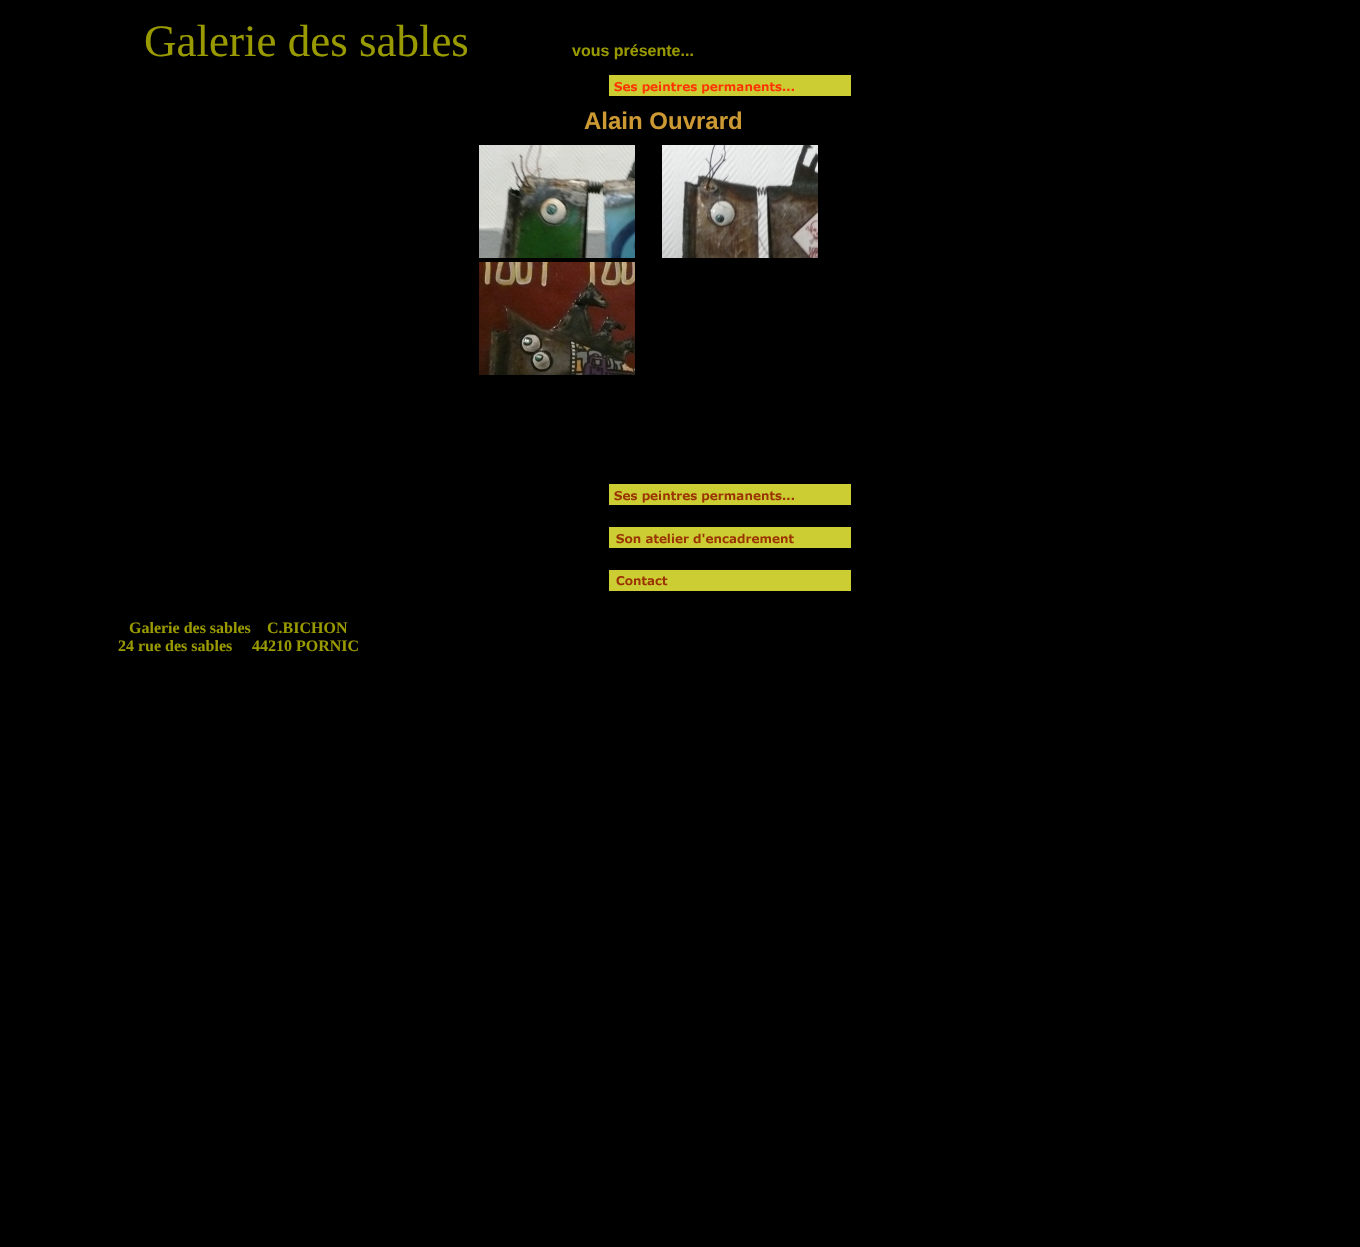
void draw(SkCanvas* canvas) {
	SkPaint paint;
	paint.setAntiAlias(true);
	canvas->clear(0xff000000);
	SkFont f1(fontMgr->matchFamilyStyle("Liberation Serif", SkFontStyle::Normal()), 45);
	f1.setSubpixel(true);
	paint.setColor(0xff999900);
	canvas->drawString("Galerie des sables", 144, 56, f1, paint);
	SkFont f2(fontMgr->matchFamilyStyle("Liberation Sans", SkFontStyle::Bold()), 16);
	f2.setSubpixel(true);
	canvas->drawString("vous présente...", 572, 56, f2, paint);
	canvas->drawImageRect(SkImages::DeferredFromEncodedData(SkData::MakeFromFileName("img1.png")), SkRect::MakeXYWH(609, 75, 242, 21), SkSamplingOptions());
	SkFont f3(fontMgr->matchFamilyStyle("Liberation Sans", SkFontStyle::Bold()), 24);
	f3.setSubpixel(true);
	paint.setColor(0xffcc9933);
	canvas->drawString("Alain Ouvrard", 584, 129, f3, paint);
	canvas->drawImageRect(SkImages::DeferredFromEncodedData(SkData::MakeFromFileName("img2.png")), SkRect::MakeXYWH(479, 145, 156, 113), SkSamplingOptions());
	canvas->drawImageRect(SkImages::DeferredFromEncodedData(SkData::MakeFromFileName("img3.png")), SkRect::MakeXYWH(662, 145, 156, 113), SkSamplingOptions());
	canvas->drawImageRect(SkImages::DeferredFromEncodedData(SkData::MakeFromFileName("img4.png")), SkRect::MakeXYWH(479, 262, 156, 113), SkSamplingOptions());
	canvas->drawImageRect(SkImages::DeferredFromEncodedData(SkData::MakeFromFileName("img5.png")), SkRect::MakeXYWH(609, 484, 242, 21), SkSamplingOptions());
	canvas->drawImageRect(SkImages::DeferredFromEncodedData(SkData::MakeFromFileName("img6.png")), SkRect::MakeXYWH(609, 527, 242, 21), SkSamplingOptions());
	canvas->drawImageRect(SkImages::DeferredFromEncodedData(SkData::MakeFromFileName("img7.png")), SkRect::MakeXYWH(609, 570, 242, 21), SkSamplingOptions());
	SkFont f4(fontMgr->matchFamilyStyle("Liberation Serif", SkFontStyle::Bold()), 16);
	f4.setSubpixel(true);
	paint.setColor(0xff999900);
	canvas->drawString("Galerie des sables", 129, 633, f4, paint);
	canvas->drawString("C.BICHON", 267, 633, f4, paint);
	canvas->drawString("24 rue des sables", 118, 651, f4, paint);
	canvas->drawString("44210 PORNIC", 252, 651, f4, paint);
}
